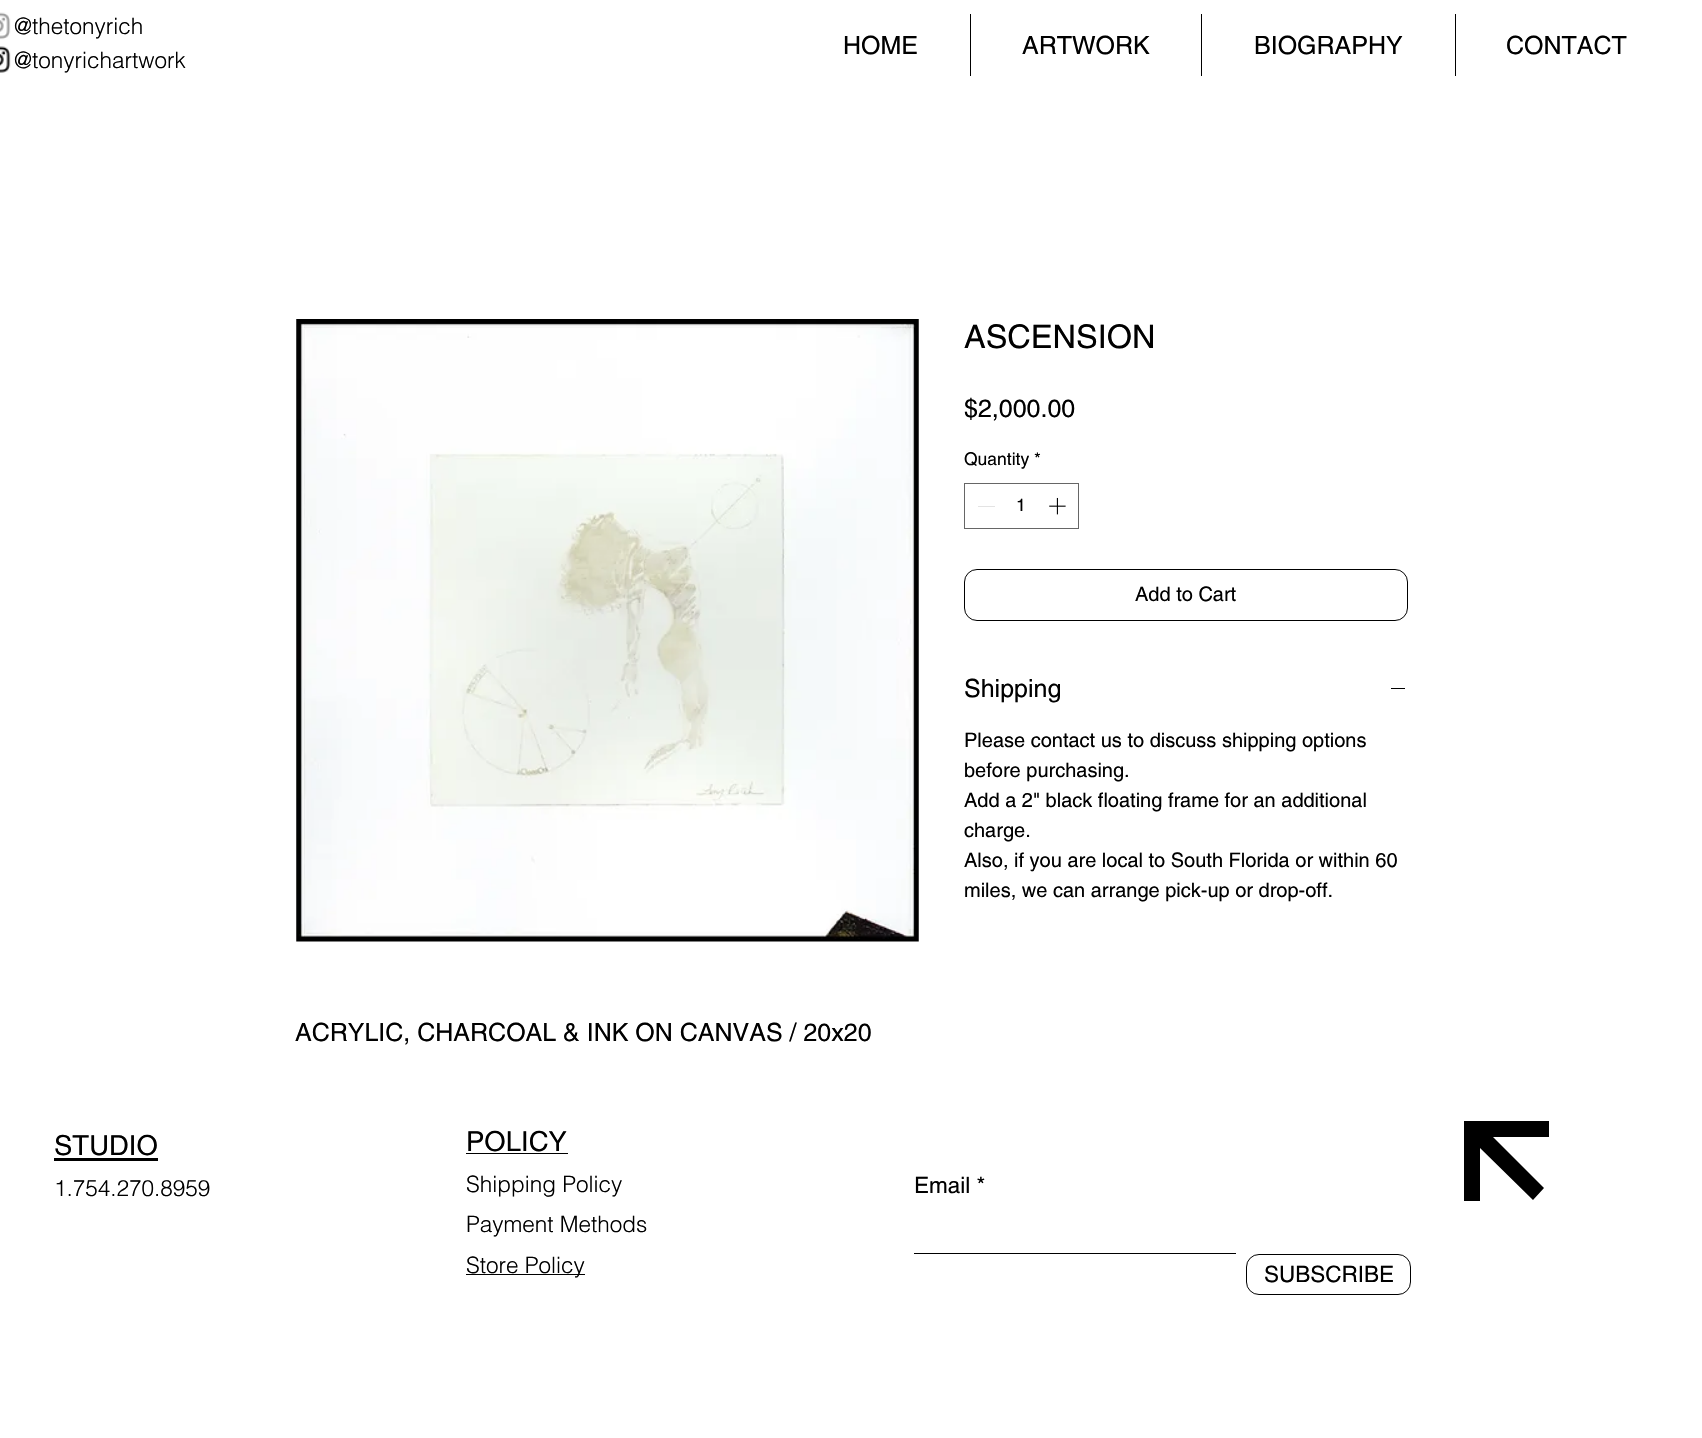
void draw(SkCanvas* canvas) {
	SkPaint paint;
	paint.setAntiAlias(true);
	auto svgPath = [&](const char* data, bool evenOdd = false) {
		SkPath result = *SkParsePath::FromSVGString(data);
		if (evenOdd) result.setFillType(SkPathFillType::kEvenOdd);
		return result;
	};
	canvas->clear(0xffffffff);
	canvas->drawImageRect(SkImages::DeferredFromEncodedData(SkData::MakeFromFileName("img1.png")), SkRect::MakeXYWH(0, 12, 11, 28), SkSamplingOptions());
	SkFont f1(fontMgr->matchFamilyStyle("helvetica", SkFontStyle(300, SkFontStyle::kNormal_Width, SkFontStyle::kUpright_Slant)), 22.5);
	f1.setSubpixel(true);
	paint.setColor(0xff000000);
	canvas->drawString("@thetonyrich", 14, 34, f1, paint);
	canvas->drawString("@tonyrichartwork", 14, 68, f1, paint);
	SkFont f2(fontMgr->matchFamilyStyle("helvetica", SkFontStyle::Normal()), 25);
	f2.setSubpixel(true);
	canvas->drawString("HOME", 843, 54, f2, paint);
	canvas->drawRect(SkRect::MakeXYWH(970, 14, 1, 62), paint);
	canvas->drawString("ARTWORK", 1022, 54, f2, paint);
	canvas->drawRect(SkRect::MakeXYWH(1201, 14, 1, 62), paint);
	canvas->drawString("BIOGRAPHY", 1254, 54, f2, paint);
	canvas->drawRect(SkRect::MakeXYWH(1455, 14, 1, 62), paint);
	canvas->drawString("CONTACT", 1506, 54, f2, paint);
	canvas->drawImageRect(SkImages::DeferredFromEncodedData(SkData::MakeFromFileName("img2.png")), SkRect::MakeXYWH(0, 46, 11, 27), SkSamplingOptions());
	SkFont f3(fontMgr->matchFamilyStyle("helvetica", SkFontStyle::Normal()), 32.5);
	f3.setSubpixel(true);
	canvas->drawString("ASCENSION", 964, 348, f3, paint);
	canvas->drawString("$2,000.00", 964, 417, f2, paint);
	SkFont f4(fontMgr->matchFamilyStyle("helvetica", SkFontStyle::Normal()), 17.5);
	f4.setSubpixel(true);
	canvas->drawString("Quantity *", 964, 465, f4, paint);
	paint.setStroke(true);
	paint.setStrokeWidth(1);
	paint.setColor(0xff666666);
	canvas->drawRect(SkRect::MakeXYWH(964.5, 483.5, 114, 45), paint);
	paint.setStroke(false);
	paint.setColor(0xffe3e3e3);
	canvas->drawRect(SkRect::MakeXYWH(978, 506, 17, 1), paint);
	paint.setColor(0xff000000);
	canvas->drawString("1", 1016, 511, f4, paint);
	canvas->drawImageRect(SkImages::DeferredFromEncodedData(SkData::MakeFromFileName("img3.png")), SkRect::MakeXYWH(1049, 497, 17, 18), SkSamplingOptions());
	paint.setStroke(true);
	canvas->drawRoundRect(SkRect::MakeXYWH(964.5, 569.5, 443, 51), 12.5, 12.5, paint);
	SkFont f5(fontMgr->matchFamilyStyle("helvetica", SkFontStyle::Normal()), 20);
	f5.setSubpixel(true);
	paint.setStroke(false);
	canvas->drawString("Add to Cart", 1135, 601, f5, paint);
	canvas->drawString("Shipping", 964, 697, f2, paint);
	canvas->drawRect(SkRect::MakeXYWH(1391, 688, 14, 1), paint);
	canvas->drawString("Please contact us to discuss shipping options", 964, 747, f5, paint);
	canvas->drawString("before purchasing.", 964, 777, f5, paint);
	canvas->drawString("Add a 2\" black floating frame for an additional", 964, 807, f5, paint);
	canvas->drawString("charge.", 964, 837, f5, paint);
	canvas->drawString("Also, if you are local to South Florida or within 60", 964, 867, f5, paint);
	canvas->drawString("miles, we can arrange pick-up or drop-off.", 964, 897, f5, paint);
	canvas->drawImageRect(SkImages::DeferredFromEncodedData(SkData::MakeFromFileName("img4.png")), SkRect::MakeXYWH(296, 319, 623, 623), SkSamplingOptions());
	canvas->drawString("ACRYLIC, CHARCOAL & INK ON CANVAS / 20x20", 295, 1041, f2, paint);
	SkFont f6(fontMgr->matchFamilyStyle("helvetica", SkFontStyle::Normal()), 27.5);
	f6.setSubpixel(true);
	canvas->drawString("STUDIO", 54, 1155, f6, paint);
	canvas->drawRect(SkRect::MakeXYWH(54, 1158, 104, 3), paint);
	canvas->drawString("1.754.270.8959", 54, 1196, f1, paint);
	canvas->drawString("POLICY", 466, 1151, f6, paint);
	canvas->drawRect(SkRect::MakeXYWH(466, 1153, 102, 1), paint);
	canvas->drawString("Shipping Policy", 466, 1192, f1, paint);
	canvas->drawString("Payment Methods", 466, 1232, f1, paint);
	canvas->drawRect(SkRect::MakeXYWH(466, 1274, 119, 1), paint);
	canvas->drawString("Store Policy", 466, 1273, f1, paint);
	canvas->drawPath(svgPath("M1480 1201H1464V1121H1549V1137H1493L1544 1188L1533 1200L1480 1148Z"), paint);
	SkFont f7(fontMgr->matchFamilyStyle("helvetica", SkFontStyle::Normal()), 22.5);
	f7.setSubpixel(true);
	canvas->drawString("Email *", 914, 1193, f7, paint);
	canvas->drawRect(SkRect::MakeXYWH(914, 1253, 322, 1), paint);
	paint.setStroke(true);
	canvas->drawRoundRect(SkRect::MakeXYWH(1246.5, 1254.5, 164, 40), 12.5, 12.5, paint);
	paint.setStroke(false);
	canvas->drawString("SUBSCRIBE", 1264, 1282, f7, paint);
}
